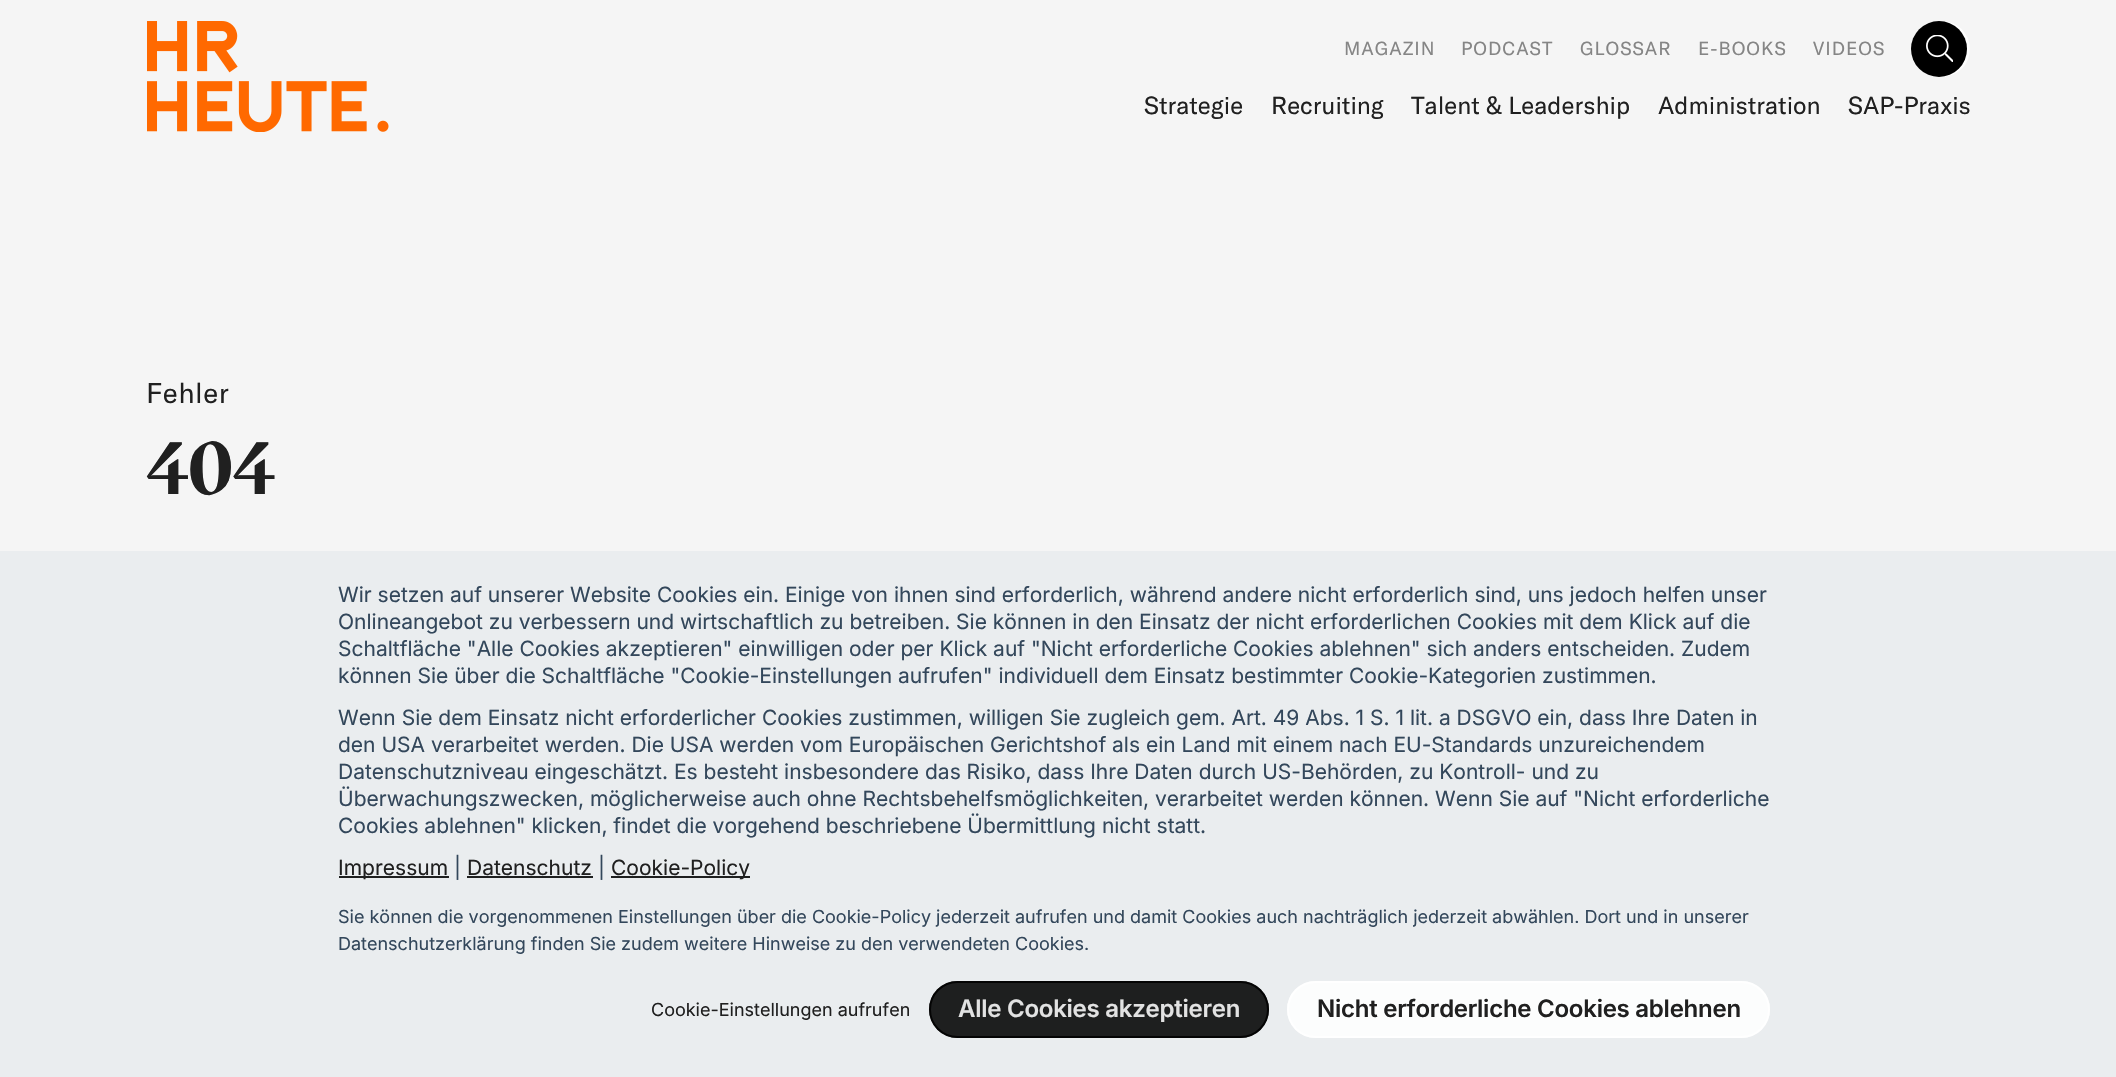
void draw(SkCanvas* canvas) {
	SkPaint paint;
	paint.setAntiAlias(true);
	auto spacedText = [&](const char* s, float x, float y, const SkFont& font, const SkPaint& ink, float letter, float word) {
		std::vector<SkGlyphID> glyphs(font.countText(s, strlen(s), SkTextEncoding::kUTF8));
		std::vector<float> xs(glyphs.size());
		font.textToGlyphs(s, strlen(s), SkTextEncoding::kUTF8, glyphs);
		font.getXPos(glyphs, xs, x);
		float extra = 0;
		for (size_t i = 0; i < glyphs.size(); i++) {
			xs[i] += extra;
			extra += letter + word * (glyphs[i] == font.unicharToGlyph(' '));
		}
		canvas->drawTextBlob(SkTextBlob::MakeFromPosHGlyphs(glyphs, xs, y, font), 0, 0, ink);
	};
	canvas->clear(0xfff5f5f5);
	canvas->drawImageRect(SkImages::DeferredFromEncodedData(SkData::MakeFromFileName("img1.png")), SkRect::MakeXYWH(147, 21, 242, 111), SkSamplingOptions());
	SkFont f1(fontMgr->matchFamilyStyle("GT America", SkFontStyle::Normal()), 18.5);
	f1.setSubpixel(true);
	paint.setColor(0xff858585);
	spacedText("MAGAZIN", 1344, 55, f1, paint, 1, 0);
	spacedText("PODCAST", 1461, 55, f1, paint, 1, 0);
	spacedText("GLOSSAR", 1580, 55, f1, paint, 1, 0);
	spacedText("E-BOOKS", 1698, 55, f1, paint, 1, 0);
	spacedText("VIDEOS", 1813, 55, f1, paint, 1, 0);
	paint.setColor(0xffffffff);
	canvas->drawRoundRect(SkRect::MakeXYWH(1911, 21, 59, 56), 28, 28, paint);
	paint.setColor(0xff000000);
	canvas->drawCircle(1939, 49, 28, paint);
	canvas->drawImageRect(SkImages::DeferredFromEncodedData(SkData::MakeFromFileName("img2.png")), SkRect::MakeXYWH(1926, 35, 27, 27), SkSamplingOptions());
	SkFont f2(fontMgr->matchFamilyStyle("GT America", SkFontStyle::Normal()), 24.25);
	f2.setSubpixel(true);
	paint.setColor(0xff202020);
	canvas->drawString("Strategie", 1144, 114, f2, paint);
	canvas->drawString("Recruiting", 1271, 114, f2, paint);
	canvas->drawString("Talent & Leadership", 1411, 114, f2, paint);
	canvas->drawString("Administration", 1658, 114, f2, paint);
	canvas->drawString("SAP-Praxis", 1848, 114, f2, paint);
	SkFont f3(fontMgr->matchFamilyStyle("GT America", SkFontStyle::Normal()), 28);
	f3.setSubpixel(true);
	spacedText("Fehler", 146, 403, f3, paint, 0.5, 0);
	SkFont f4(fontMgr->matchFamilyStyle("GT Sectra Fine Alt", SkFontStyle::Bold()), 74);
	f4.setSubpixel(true);
	spacedText("404", 146, 494, f4, paint, -1.5, 0);
	paint.setColor(0xffeaedef);
	canvas->drawRect(SkRect::MakeXYWH(0, 551, 2116, 526), paint);
	SkFont f5(fontMgr->matchFamilyStyle("Inter", SkFontStyle::Normal()), 21);
	f5.setSubpixel(true);
	paint.setColor(0xff33475b);
	canvas->drawString("Wir setzen auf unserer Website Cookies ein. Einige von ihnen sind erforderlich, während andere nicht erforderlich sind, uns jedoch helfen unser", 338, 602, f5, paint);
	canvas->drawString("Onlineangebot zu verbessern und wirtschaftlich zu betreiben. Sie können in den Einsatz der nicht erforderlichen Cookies mit dem Klick auf die", 338, 629, f5, paint);
	canvas->drawString("Schaltfläche \"Alle Cookies akzeptieren\" einwilligen oder per Klick auf \"Nicht erforderliche Cookies ablehnen\" sich anders entscheiden. Zudem", 338, 656, f5, paint);
	canvas->drawString("können Sie über die Schaltfläche \"Cookie-Einstellungen aufrufen\" individuell dem Einsatz bestimmter Cookie-Kategorien zustimmen.", 338, 683, f5, paint);
	canvas->drawString("Wenn Sie dem Einsatz nicht erforderlicher Cookies zustimmen, willigen Sie zugleich gem. Art. 49 Abs. 1 S. 1 lit. a DSGVO ein, dass Ihre Daten in", 338, 725, f5, paint);
	canvas->drawString("den USA verarbeitet werden. Die USA werden vom Europäischen Gerichtshof als ein Land mit einem nach EU-Standards unzureichendem", 338, 752, f5, paint);
	canvas->drawString("Datenschutzniveau eingeschätzt. Es besteht insbesondere das Risiko, dass Ihre Daten durch US-Behörden, zu Kontroll- und zu", 338, 779, f5, paint);
	canvas->drawString("Überwachungszwecken, möglicherweise auch ohne Rechtsbehelfsmöglichkeiten, verarbeitet werden können. Wenn Sie auf \"Nicht erforderliche", 338, 806, f5, paint);
	canvas->drawString("Cookies ablehnen\" klicken, findet die vorgehend beschriebene Übermittlung nicht statt.", 338, 833, f5, paint);
	paint.setColor(0xff1e1f1f);
	canvas->drawRect(SkRect::MakeXYWH(339, 876, 110, 2), paint);
	paint.setColor(0xff202020);
	canvas->drawString("Impressum", 338, 875, f5, paint);
	paint.setColor(0xff33475b);
	canvas->drawString("|", 454, 875, f5, paint);
	paint.setColor(0xff202020);
	canvas->drawString("Datenschutz", 467, 875, f5, paint);
	paint.setColor(0xff1e1f1f);
	canvas->drawRect(SkRect::MakeXYWH(467, 876, 126, 2), paint);
	paint.setColor(0xff33475b);
	canvas->drawString("|", 598, 875, f5, paint);
	paint.setColor(0xff1e1f1f);
	canvas->drawRect(SkRect::MakeXYWH(611, 876, 139, 2), paint);
	paint.setColor(0xff202020);
	canvas->drawString("Cookie-Policy", 611, 875, f5, paint);
	SkFont f6(fontMgr->matchFamilyStyle("Inter", SkFontStyle::Normal()), 18);
	f6.setSubpixel(true);
	paint.setColor(0xff33475b);
	canvas->drawString("Sie können die vorgenommenen Einstellungen über die Cookie-Policy jederzeit aufrufen und damit Cookies auch nachträglich jederzeit abwählen. Dort und in unserer", 338, 923, f6, paint);
	canvas->drawString("Datenschutzerklärung finden Sie zudem weitere Hinweise zu den verwendeten Cookies.", 338, 950, f6, paint);
	paint.setColor(0xff202020);
	canvas->drawString("Cookie-Einstellungen aufrufen", 651, 1016, f6, paint);
	paint.setColor(0xff1e1f1f);
	canvas->drawRoundRect(SkRect::MakeXYWH(929, 981, 340, 57), 28.5, 28.5, paint);
	paint.setStroke(true);
	paint.setStrokeWidth(2);
	paint.setColor(0xde000000);
	canvas->drawRoundRect(SkRect::MakeXYWH(930, 982, 338, 55), 27.5, 27.5, paint);
	SkFont f7(fontMgr->matchFamilyStyle("Inter", SkFontStyle(600, SkFontStyle::kNormal_Width, SkFontStyle::kUpright_Slant)), 24);
	f7.setSubpixel(true);
	paint.setStroke(false);
	paint.setColor(0xffe2e2e2);
	spacedText("Alle Cookies akzeptieren", 958, 1017, f7, paint, -0.25, 0);
	paint.setColor(0xfffcfdfd);
	canvas->drawRoundRect(SkRect::MakeXYWH(1287, 981, 483, 57), 28.5, 28.5, paint);
	paint.setStroke(true);
	paint.setColor(0xdeffffff);
	canvas->drawRoundRect(SkRect::MakeXYWH(1288, 982, 481, 55), 27.5, 27.5, paint);
	paint.setStroke(false);
	paint.setColor(0xff202020);
	spacedText("Nicht erforderliche Cookies ablehnen", 1317, 1017, f7, paint, -0.25, 0);
}
